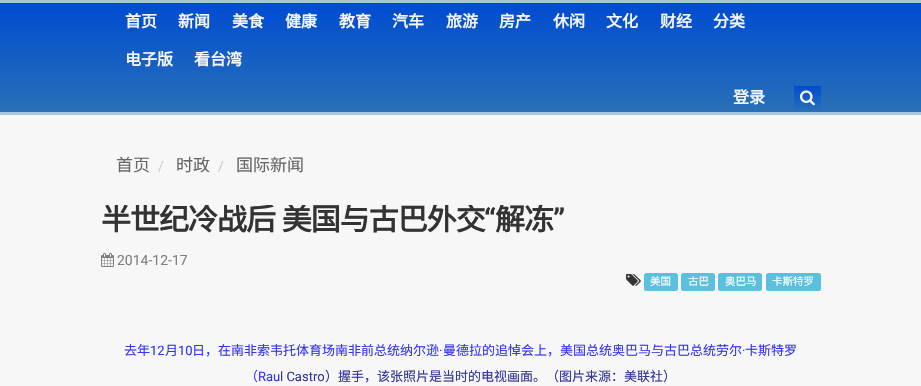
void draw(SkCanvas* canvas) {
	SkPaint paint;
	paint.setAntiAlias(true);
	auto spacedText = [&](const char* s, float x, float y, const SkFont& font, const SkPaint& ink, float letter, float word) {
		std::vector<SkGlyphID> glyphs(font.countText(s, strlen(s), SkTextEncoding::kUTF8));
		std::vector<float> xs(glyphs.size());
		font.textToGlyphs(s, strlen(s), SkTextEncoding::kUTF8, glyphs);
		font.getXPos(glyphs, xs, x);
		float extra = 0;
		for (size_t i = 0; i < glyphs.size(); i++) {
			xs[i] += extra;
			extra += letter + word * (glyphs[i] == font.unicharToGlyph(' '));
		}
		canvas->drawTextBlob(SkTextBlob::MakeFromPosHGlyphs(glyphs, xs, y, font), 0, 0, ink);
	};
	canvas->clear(0xfff7f7f7);
	{
		const SkColor colors[] = {0xff004cd1, 0xff2970b7};
		const float stops[] = {0, 1};
		const SkPoint ends[] = {{461, 3}, {461, 112}};
		paint.setShader(SkGradientShader::MakeLinear(ends, colors, stops, 2, SkTileMode::kClamp));
		paint.setAlpha(255);
	}
	canvas->drawRect(SkRect::MakeXYWH(0, 3, 921, 109), paint);
	paint.setShader(nullptr);
	paint.setColor(0xffa7c6db);
	canvas->drawRect(SkRect::MakeXYWH(0, 0, 921, 3), paint);
	canvas->drawRect(SkRect::MakeXYWH(0, 112, 921, 3), paint);
	SkFont f1(fontMgr->matchFamilyStyle("Noto Sans CJK SC", SkFontStyle::Bold()), 16);
	f1.setSubpixel(true);
	paint.setColor(0xfff7f7f7);
	canvas->drawString("首页", 125, 27, f1, paint);
	canvas->drawString("新闻", 178, 27, f1, paint);
	canvas->drawString("美食", 232, 27, f1, paint);
	canvas->drawString("健康", 285, 27, f1, paint);
	canvas->drawString("教育", 339, 27, f1, paint);
	canvas->drawString("汽车", 392, 27, f1, paint);
	canvas->drawString("旅游", 446, 27, f1, paint);
	canvas->drawString("房产", 499, 27, f1, paint);
	canvas->drawString("休闲", 553, 27, f1, paint);
	canvas->drawString("文化", 606, 27, f1, paint);
	canvas->drawString("财经", 660, 27, f1, paint);
	canvas->drawString("分类", 713, 27, f1, paint);
	canvas->drawString("电子版", 125, 65, f1, paint);
	canvas->drawString("看台湾", 194, 65, f1, paint);
	canvas->drawString("登录", 733, 103, f1, paint);
	{
		const SkColor colors[] = {0xff004cd1, 0xff2970b7};
		const float stops[] = {0, 1};
		const SkPoint ends[] = {{808, 86}, {808, 111}};
		paint.setShader(SkGradientShader::MakeLinear(ends, colors, stops, 2, SkTileMode::kClamp));
		paint.setAlpha(255);
	}
	canvas->drawRect(SkRect::MakeXYWH(794, 86, 27, 23), paint);
	canvas->drawImageRect(SkImages::DeferredFromEncodedData(SkData::MakeFromFileName("img1.png")), SkRect::MakeXYWH(800, 90, 15, 16), SkSamplingOptions());
	SkFont f2(fontMgr->matchFamilyStyle("Noto Sans CJK SC", SkFontStyle::Normal()), 17);
	f2.setSubpixel(true);
	paint.setShader(nullptr);
	paint.setColor(0xff666666);
	canvas->drawString("首页", 116, 171, f2, paint);
	SkFont f3(fontMgr->matchFamilyStyle("Roboto", SkFontStyle::Normal()), 14);
	f3.setSubpixel(true);
	paint.setColor(0xffcccccc);
	canvas->drawString("/", 158, 171, f3, paint);
	paint.setColor(0xff666666);
	canvas->drawString("时政", 176, 171, f2, paint);
	paint.setColor(0xffcccccc);
	canvas->drawString("/", 218, 171, f3, paint);
	paint.setColor(0xff666666);
	canvas->drawString("国际新闻", 236, 171, f2, paint);
	canvas->save();
	canvas->clipRect(SkRect::MakeXYWH(101, 205, 720, 30));
	SkFont f4(fontMgr->matchFamilyStyle("Noto Sans CJK SC", SkFontStyle::Bold()), 30);
	f4.setSubpixel(true);
	paint.setColor(0xff333333);
	spacedText("半世纪冷战后 美国与古巴外交", 101, 230, f4, paint, -1, 1);
	canvas->restore();
	SkFont f5(fontMgr->matchFamilyStyle("Roboto", SkFontStyle::Bold()), 30);
	f5.setSubpixel(true);
	spacedText("“", 484, 230, f5, paint, -1, 0);
	canvas->save();
	canvas->clipRect(SkRect::MakeXYWH(101, 205, 720, 30));
	spacedText("解冻", 495, 230, f4, paint, -1, 0);
	canvas->restore();
	spacedText("”", 553, 230, f5, paint, -1, 0);
	canvas->drawImageRect(SkImages::DeferredFromEncodedData(SkData::MakeFromFileName("img2.png")), SkRect::MakeXYWH(101, 253, 13, 14), SkSamplingOptions());
	paint.setColor(0xff808080);
	canvas->drawString("2014-12-17", 117, 265, f3, paint);
	canvas->drawImageRect(SkImages::DeferredFromEncodedData(SkData::MakeFromFileName("img3.png")), SkRect::MakeXYWH(626, 274, 15, 12), SkSamplingOptions());
	paint.setColor(0xff5bc0de);
	canvas->drawRoundRect(SkRect::MakeXYWH(644, 273, 34, 18), 2.5, 2.5, paint);
	SkFont f6(fontMgr->matchFamilyStyle("Noto Sans CJK SC", SkFontStyle::Normal()), 10.5);
	f6.setSubpixel(true);
	paint.setColor(0xffffffff);
	canvas->drawString("美国", 650, 285, f6, paint);
	paint.setColor(0xff5bc0de);
	canvas->drawRoundRect(SkRect::MakeXYWH(681, 273, 34, 18), 2.5, 2.5, paint);
	paint.setColor(0xffffffff);
	canvas->drawString("古巴", 688, 285, f6, paint);
	paint.setColor(0xff5bc0de);
	canvas->drawRoundRect(SkRect::MakeXYWH(718, 273, 44, 18), 2.5, 2.5, paint);
	paint.setColor(0xffffffff);
	canvas->drawString("奥巴马", 725, 285, f6, paint);
	paint.setColor(0xff5bc0de);
	canvas->drawRoundRect(SkRect::MakeXYWH(766, 273, 55, 18), 2.5, 2.5, paint);
	paint.setColor(0xffffffff);
	canvas->drawString("卡斯特罗", 772, 285, f6, paint);
	SkFont f7(fontMgr->matchFamilyStyle("Noto Sans CJK SC", SkFontStyle::Normal()), 13);
	f7.setSubpixel(true);
	paint.setColor(0xff3333ff);
	canvas->drawString("去年", 124, 355, f7, paint);
	SkFont f8(fontMgr->matchFamilyStyle("Roboto", SkFontStyle::Normal()), 13);
	f8.setSubpixel(true);
	canvas->drawString("12", 150, 355, f8, paint);
	canvas->drawString("月", 165, 355, f7, paint);
	canvas->drawString("10", 178, 355, f8, paint);
	canvas->drawString("日，在南非索韦托体育场南非前总统纳尔逊", 192, 355, f7, paint);
	canvas->drawString("·", 439, 355, f8, paint);
	canvas->drawString("曼德拉的追悼会上，美国总统奥巴马与古巴总统劳尔", 443, 355, f7, paint);
	canvas->drawString("·", 742, 355, f8, paint);
	canvas->drawString("卡斯特罗", 745, 355, f7, paint);
	canvas->drawString("（", 245, 381, f7, paint);
	canvas->drawString("Rau", 258, 381, f8, paint);
	paint.setColor(0xff333399);
	canvas->drawString("l Castro", 280, 381, f8, paint);
	canvas->drawString("）握手，该张照片是当时的电视画面。（图片来源：美联社）", 325, 381, f7, paint);
}
